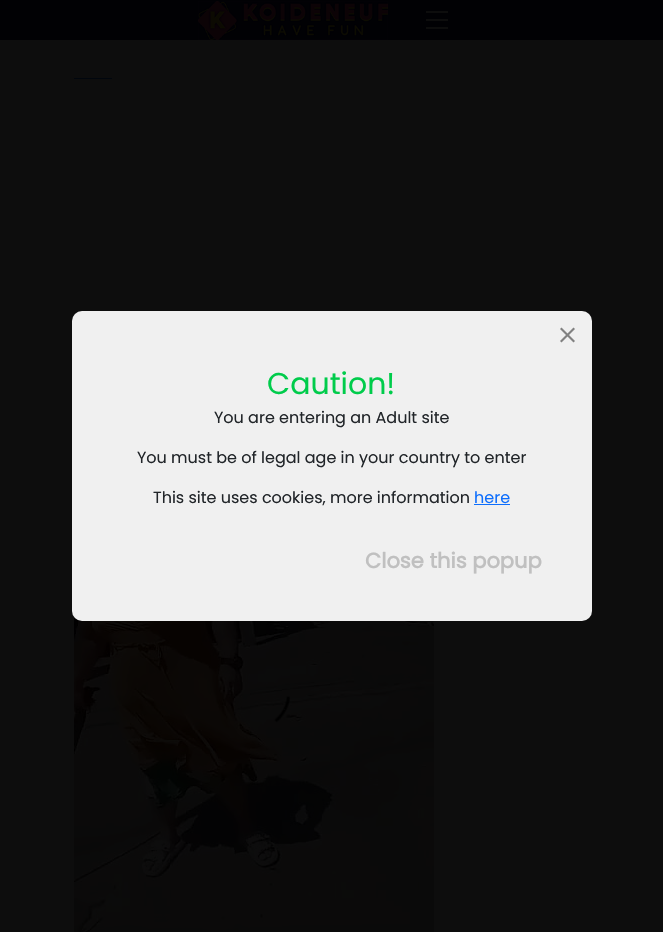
void draw(SkCanvas* canvas) {
	SkPaint paint;
	paint.setAntiAlias(true);
	auto svgPath = [&](const char* data, bool evenOdd = false) {
		SkPath result = *SkParsePath::FromSVGString(data);
		if (evenOdd) result.setFillType(SkPathFillType::kEvenOdd);
		return result;
	};
	canvas->clear(0xff0d0d0d);
	paint.setColor(0xff010104);
	canvas->drawRect(SkRect::MakeXYWH(0, 0, 663, 40), paint);
	canvas->drawImageRect(SkImages::DeferredFromEncodedData(SkData::MakeFromFileName("img1.png")), SkRect::MakeXYWH(198, 1, 190, 39), SkSamplingOptions());
	canvas->drawImageRect(SkImages::DeferredFromEncodedData(SkData::MakeFromFileName("img2.png")), SkRect::MakeXYWH(426, 11, 22, 18), SkSamplingOptions());
	paint.setColor(0xff01060d);
	canvas->drawRect(SkRect::MakeXYWH(74, 78, 38, 1), paint);
	canvas->drawImageRect(SkImages::DeferredFromEncodedData(SkData::MakeFromFileName("img3.png")), SkRect::MakeXYWH(74, 617, 360, 315), SkSamplingOptions());
	paint.setColor(0xfff0f0f0);
	canvas->drawRoundRect(SkRect::MakeXYWH(72, 311, 520, 310), 10, 10, paint);
	paint.setColor(0xff818181);
	canvas->drawPath(svgPath("M561.5 327.5L575 341L573.5 342.5L560 329Z"), paint);
	canvas->drawPath(svgPath("M560 341L573.5 327.5L575 329L561.5 342.5Z"), paint);
	SkFont f1(fontMgr->matchFamilyStyle("Poppins", SkFontStyle::Normal()), 30);
	f1.setSubpixel(true);
	paint.setColor(0xff00cc4b);
	canvas->drawString("Caution!", 267, 394, f1, paint);
	SkFont f2(fontMgr->matchFamilyStyle("Poppins", SkFontStyle::Normal()), 16);
	f2.setSubpixel(true);
	paint.setColor(0xff212529);
	canvas->drawString("You are entering an Adult site", 214, 423, f2, paint);
	canvas->drawString("You must be of legal age in your country to enter", 137, 463, f2, paint);
	canvas->drawString("This site uses cookies, more information", 153, 503, f2, paint);
	paint.setColor(0xff0d6efd);
	canvas->drawString("here", 474, 503, f2, paint);
	canvas->drawRect(SkRect::MakeXYWH(474, 504, 36, 1), paint);
	SkFont f3(fontMgr->matchFamilyStyle("Poppins", SkFontStyle::Bold()), 21);
	f3.setSubpixel(true);
	paint.setColor(0xffc0c0c0);
	canvas->drawString("Close this popup", 365, 568, f3, paint);
}
